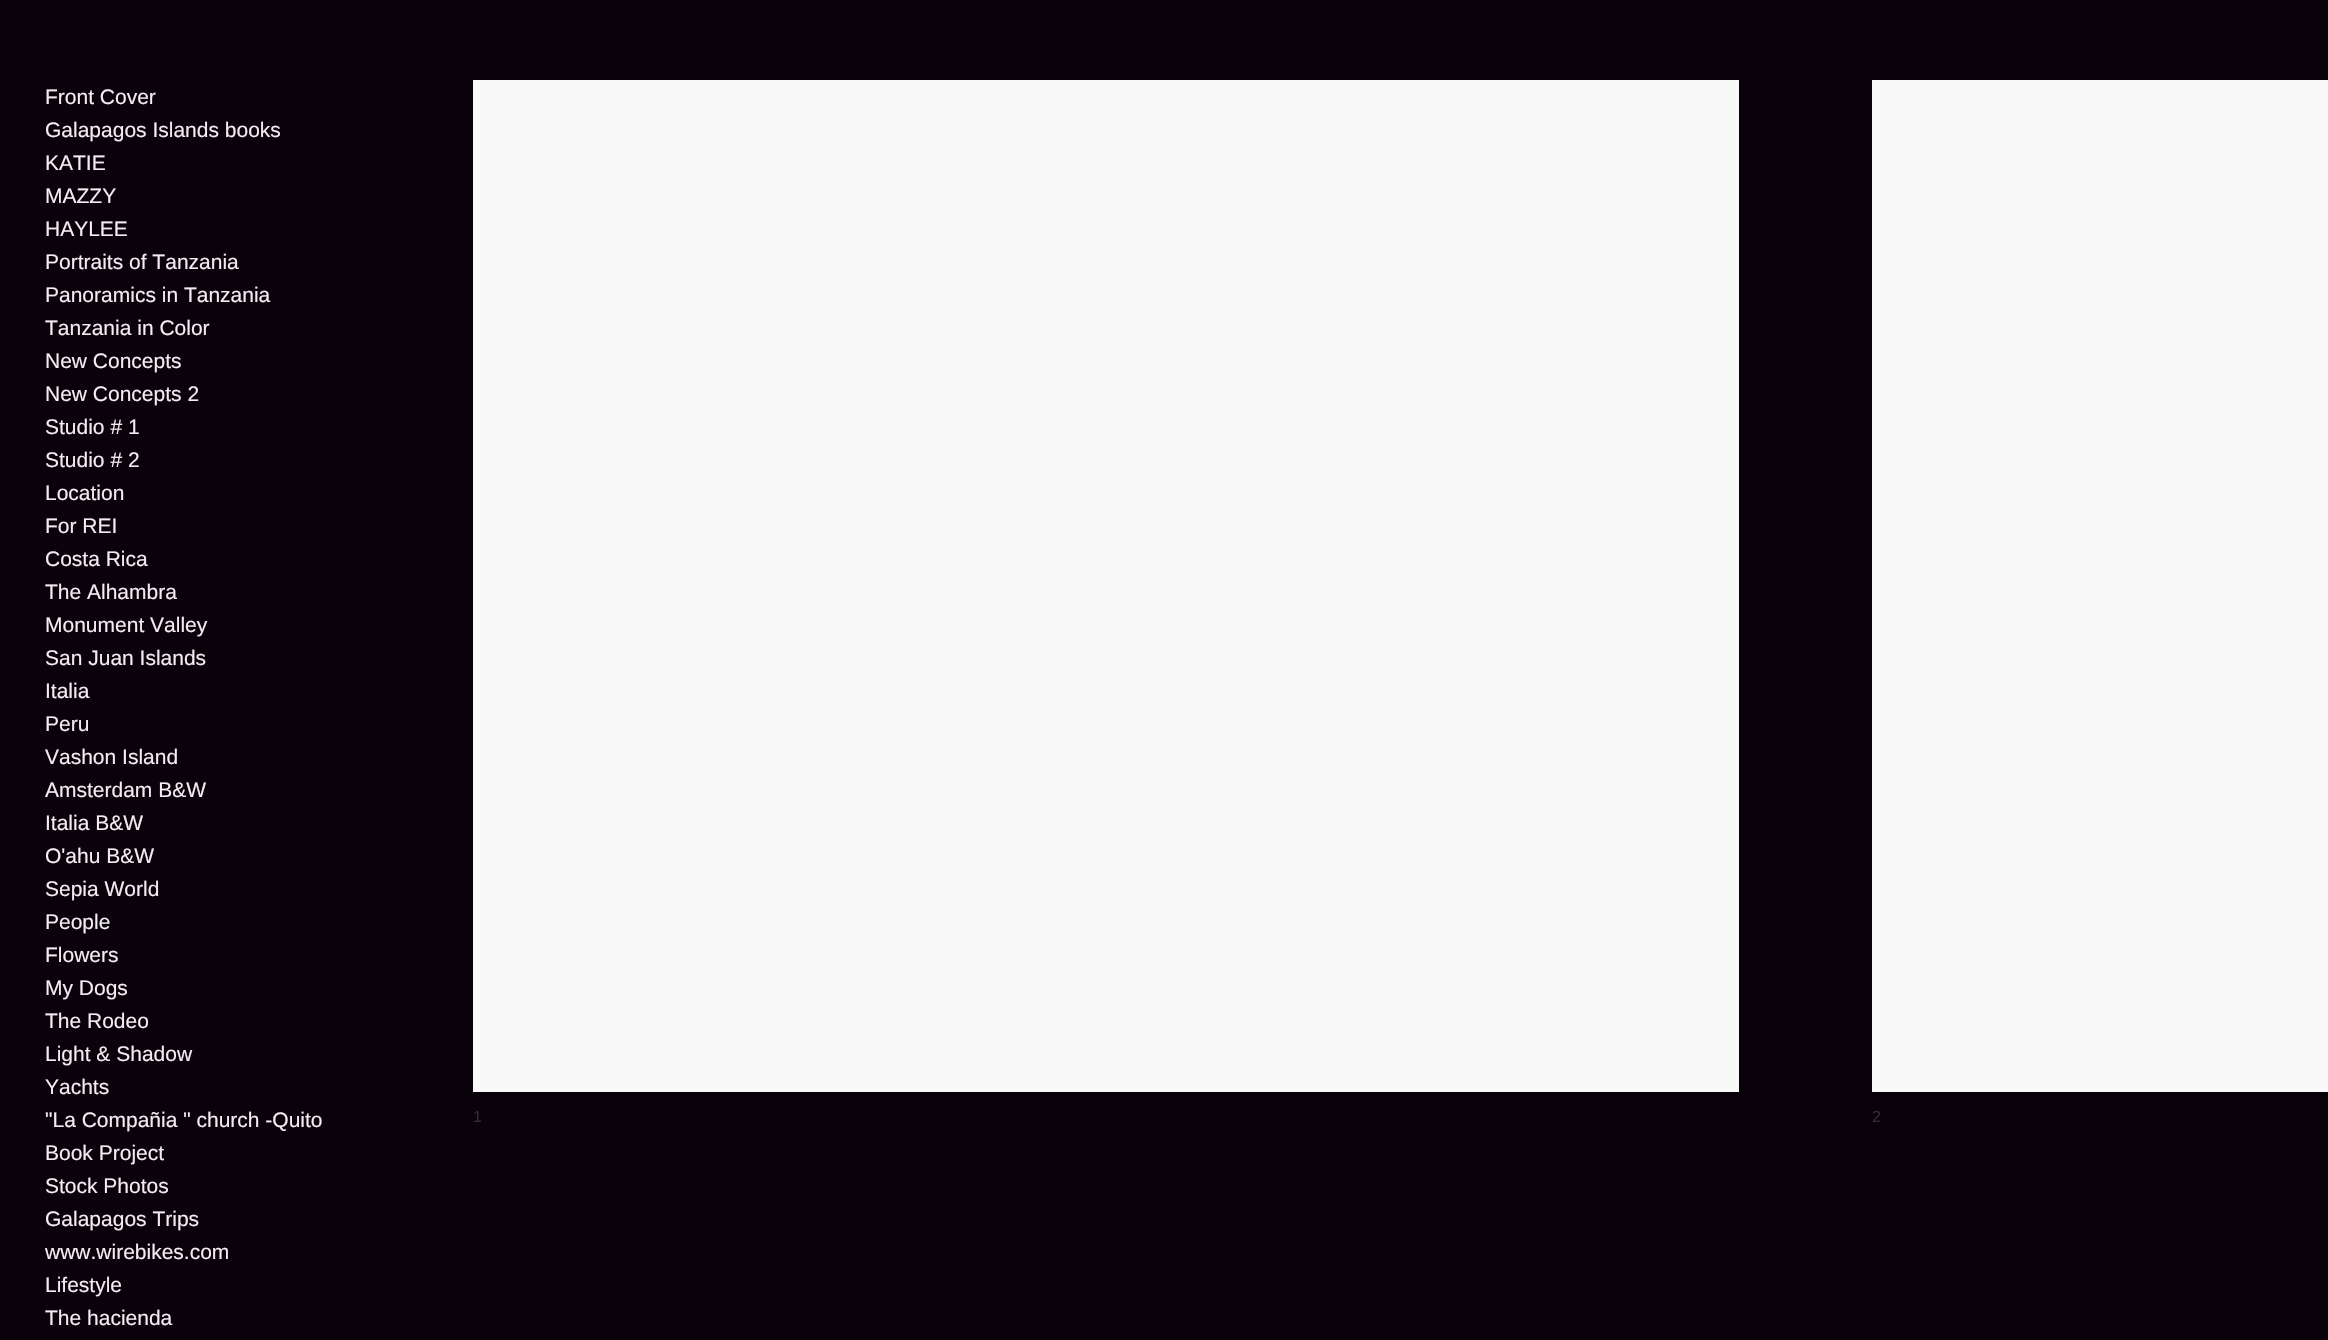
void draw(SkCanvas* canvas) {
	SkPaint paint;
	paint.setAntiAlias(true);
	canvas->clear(0xff0a020a);
	SkFont f1(fontMgr->matchFamilyStyle("Liberation Sans", SkFontStyle::Normal()), 21);
	f1.setSubpixel(true);
	paint.setColor(0xfff2edf2);
	canvas->drawString("Front Cover", 45, 104, f1, paint);
	canvas->drawString("Galapagos Islands books", 45, 137, f1, paint);
	canvas->drawString("KATIE", 45, 170, f1, paint);
	canvas->drawString("MAZZY", 45, 203, f1, paint);
	canvas->drawString("HAYLEE", 45, 236, f1, paint);
	canvas->drawString("Portraits of Tanzania", 45, 269, f1, paint);
	canvas->drawString("Panoramics in Tanzania", 45, 302, f1, paint);
	canvas->drawString("Tanzania in Color", 45, 335, f1, paint);
	canvas->drawString("New Concepts", 45, 368, f1, paint);
	canvas->drawString("New Concepts 2", 45, 401, f1, paint);
	canvas->drawString("Studio # 1", 45, 434, f1, paint);
	canvas->drawString("Studio # 2", 45, 467, f1, paint);
	canvas->drawString("Location", 45, 500, f1, paint);
	canvas->drawString("For REI", 45, 533, f1, paint);
	canvas->drawString("Costa Rica", 45, 566, f1, paint);
	canvas->drawString("The Alhambra", 45, 599, f1, paint);
	canvas->drawString("Monument Valley", 45, 632, f1, paint);
	canvas->drawString("San Juan Islands", 45, 665, f1, paint);
	canvas->drawString("Italia", 45, 698, f1, paint);
	canvas->drawString("Peru", 45, 731, f1, paint);
	canvas->drawString("Vashon Island", 45, 764, f1, paint);
	canvas->drawString("Amsterdam B&W", 45, 797, f1, paint);
	canvas->drawString("Italia B&W", 45, 830, f1, paint);
	canvas->drawString("O'ahu B&W", 45, 863, f1, paint);
	canvas->drawString("Sepia World", 45, 896, f1, paint);
	canvas->drawString("People", 45, 929, f1, paint);
	canvas->drawString("Flowers", 45, 962, f1, paint);
	canvas->drawString("My Dogs", 45, 995, f1, paint);
	canvas->drawString("The Rodeo", 45, 1028, f1, paint);
	canvas->drawString("Light & Shadow", 45, 1061, f1, paint);
	canvas->drawString("Yachts", 45, 1094, f1, paint);
	canvas->drawString("\"La Compañia \" church -Quito", 45, 1127, f1, paint);
	canvas->drawString("Book Project", 45, 1160, f1, paint);
	canvas->drawString("Stock Photos", 45, 1193, f1, paint);
	canvas->drawString("Galapagos Trips", 45, 1226, f1, paint);
	canvas->drawString("www.wirebikes.com", 45, 1259, f1, paint);
	canvas->drawString("Lifestyle", 45, 1292, f1, paint);
	canvas->drawString("The hacienda", 45, 1325, f1, paint);
	paint.setColor(0xfff9f9f9);
	canvas->drawRect(SkRect::MakeXYWH(473, 80, 1266, 1012), paint);
	SkFont f2(fontMgr->matchFamilyStyle("Liberation Sans", SkFontStyle::Normal()), 16);
	f2.setSubpixel(true);
	paint.setColor(0xff302c30);
	canvas->drawString("1", 473, 1122, f2, paint);
	paint.setColor(0xfff9f9f9);
	canvas->drawRect(SkRect::MakeXYWH(1872, 80, 456, 1012), paint);
	paint.setColor(0xff302c30);
	canvas->drawString("2", 1872, 1122, f2, paint);
}
